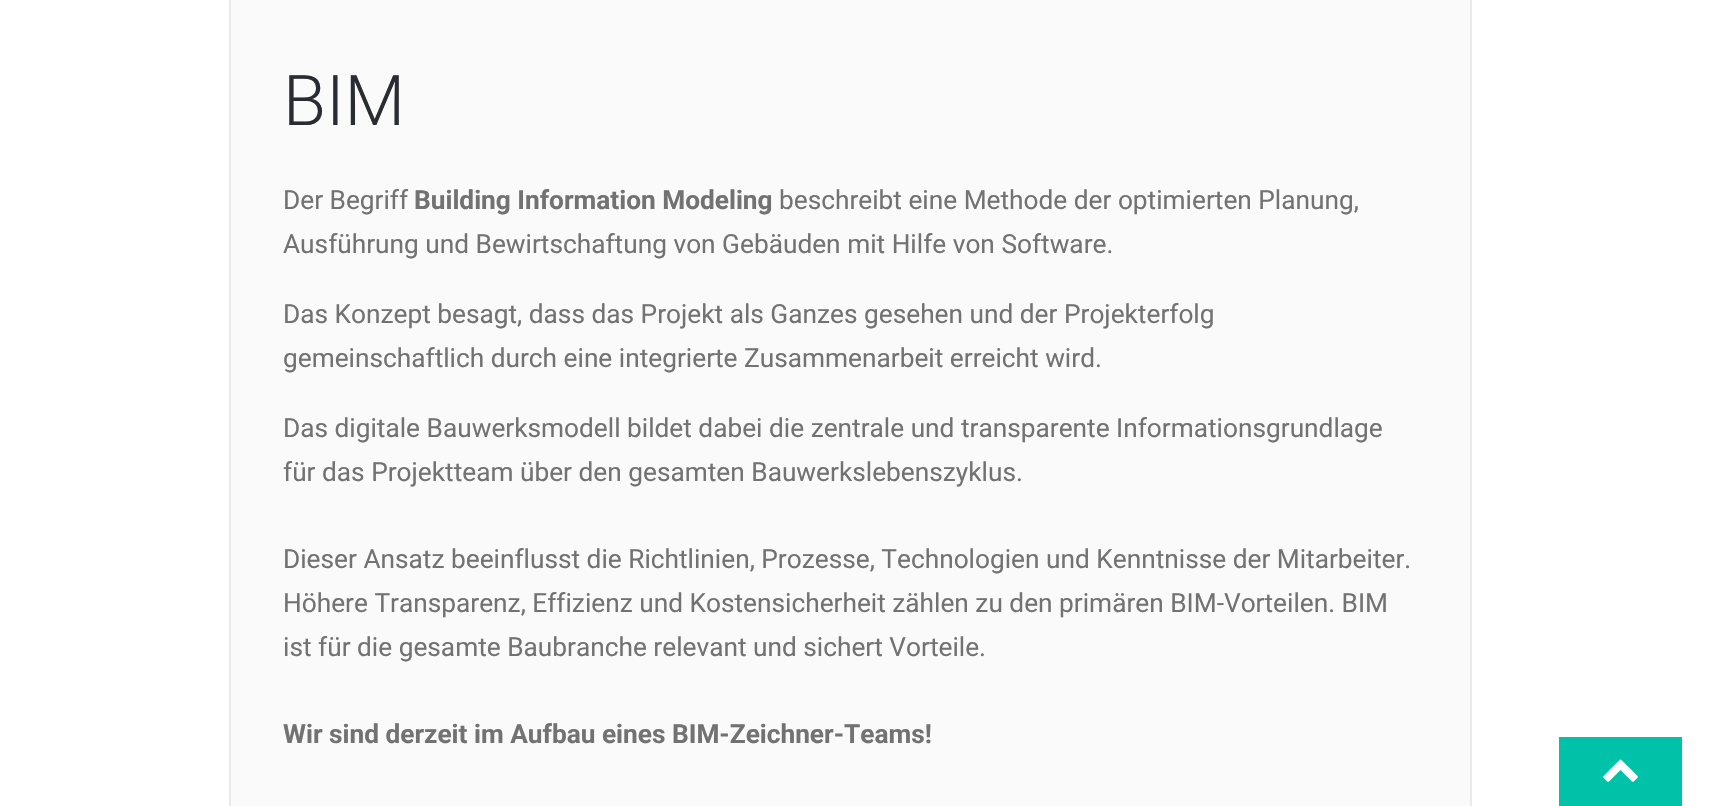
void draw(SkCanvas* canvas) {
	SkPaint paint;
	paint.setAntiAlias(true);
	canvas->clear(0xffffffff);
	paint.setColor(0xfffafafa);
	canvas->drawRect(SkRect::MakeXYWH(230, -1, 1241, 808), paint);
	paint.setStroke(true);
	paint.setStrokeWidth(2);
	paint.setColor(0xffeaeaea);
	canvas->drawRect(SkRect::MakeXYWH(230, -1, 1241, 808), paint);
	SkFont f1(fontMgr->matchFamilyStyle("Roboto", SkFontStyle(300, SkFontStyle::kNormal_Width, SkFontStyle::kUpright_Slant)), 70);
	f1.setSubpixel(true);
	paint.setStroke(false);
	paint.setColor(0xff2a2c33);
	canvas->drawString("BIM", 283, 125, f1, paint);
	SkFont f2(fontMgr->matchFamilyStyle("Roboto", SkFontStyle::Normal()), 26.25);
	f2.setSubpixel(true);
	paint.setColor(0xff727272);
	canvas->drawString("Der Begriff", 283, 209, f2, paint);
	SkFont f3(fontMgr->matchFamilyStyle("Roboto", SkFontStyle::Bold()), 26.25);
	f3.setSubpixel(true);
	canvas->drawString("Building Information Modeling", 414, 209, f3, paint);
	canvas->drawString("beschreibt eine Methode der optimierten Planung,", 779, 209, f2, paint);
	canvas->drawString("Ausführung und Bewirtschaftung von Gebäuden mit Hilfe von Software.", 283, 253, f2, paint);
	canvas->drawString("Das Konzept besagt, dass das Projekt als Ganzes gesehen und der Projekterfolg", 283, 323, f2, paint);
	canvas->drawString("gemeinschaftlich durch eine integrierte Zusammenarbeit erreicht wird.", 283, 367, f2, paint);
	canvas->drawString("Das digitale Bauwerksmodell bildet dabei die zentrale und transparente Informationsgrundlage", 283, 437, f2, paint);
	canvas->drawString("für das Projektteam über den gesamten Bauwerkslebenszyklus.", 283, 481, f2, paint);
	canvas->drawString("Dieser Ansatz beeinflusst die Richtlinien, Prozesse, Technologien und Kenntnisse der Mitarbeiter.", 283, 568, f2, paint);
	canvas->drawString("Höhere Transparenz, Effizienz und Kostensicherheit zählen zu den primären BIM-Vorteilen. BIM", 283, 612, f2, paint);
	canvas->drawString("ist für die gesamte Baubranche relevant und sichert Vorteile.", 283, 656, f2, paint);
	canvas->drawString("Wir sind derzeit im Aufbau eines BIM-Zeichner-Teams!", 283, 743, f3, paint);
	paint.setColor(0xff00c2a9);
	canvas->drawRect(SkRect::MakeXYWH(1559, 737, 123, 69), paint);
	canvas->drawImageRect(SkImages::DeferredFromEncodedData(SkData::MakeFromFileName("img1.png")), SkRect::MakeXYWH(1603, 759, 35, 23), SkSamplingOptions());
}
